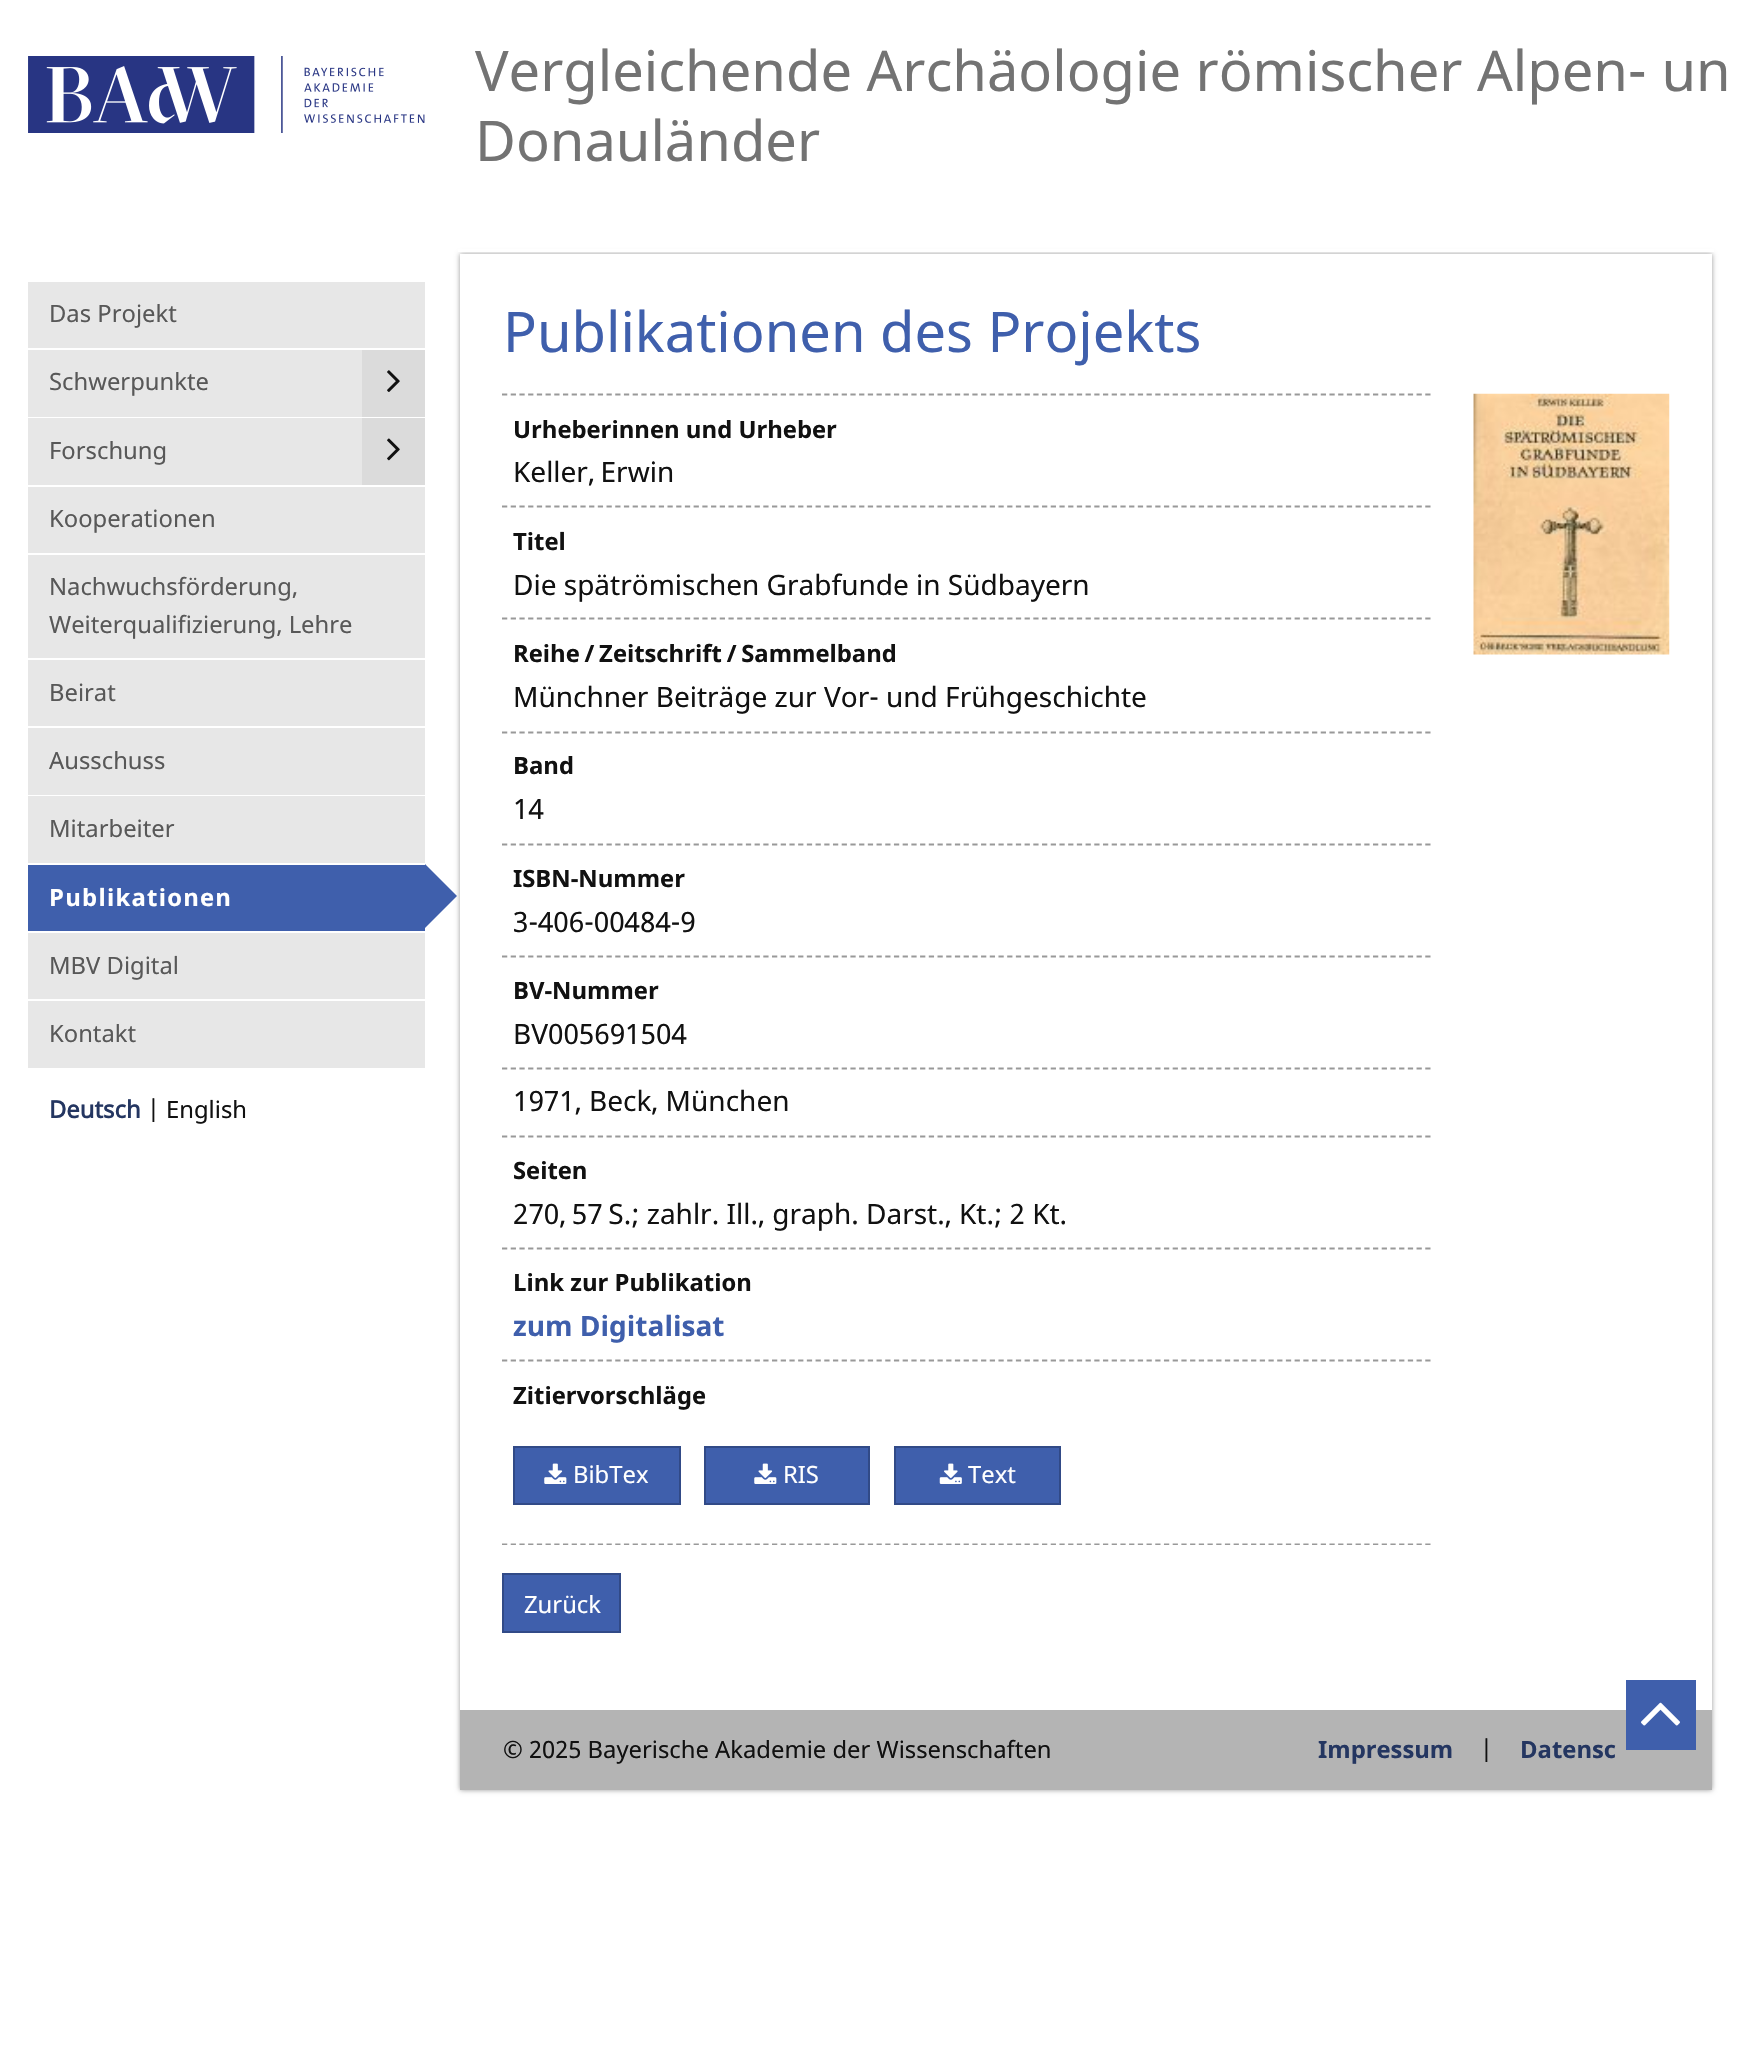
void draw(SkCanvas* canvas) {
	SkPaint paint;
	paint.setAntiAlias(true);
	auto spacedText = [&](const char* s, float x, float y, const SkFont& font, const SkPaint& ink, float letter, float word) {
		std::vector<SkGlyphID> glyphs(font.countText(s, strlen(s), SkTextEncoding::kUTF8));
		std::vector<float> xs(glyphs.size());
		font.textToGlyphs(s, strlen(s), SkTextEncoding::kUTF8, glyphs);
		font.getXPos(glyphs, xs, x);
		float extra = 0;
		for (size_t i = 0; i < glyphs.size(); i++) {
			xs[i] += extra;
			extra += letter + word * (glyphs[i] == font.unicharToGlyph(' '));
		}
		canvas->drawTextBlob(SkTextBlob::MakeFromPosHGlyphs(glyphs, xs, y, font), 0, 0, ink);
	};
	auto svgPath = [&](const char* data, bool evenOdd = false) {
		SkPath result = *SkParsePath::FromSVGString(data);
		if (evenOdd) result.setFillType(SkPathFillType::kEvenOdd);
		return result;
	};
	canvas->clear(0xffffffff);
	paint.setColor(0xff999999);
	paint.setMaskFilter(SkMaskFilter::MakeBlur(kNormal_SkBlurStyle, 2.5));
	canvas->drawRect(SkRect::MakeXYWH(460, 254, 1252, 1536), paint);
	paint.setMaskFilter(nullptr);
	paint.setColor(0xffffffff);
	canvas->drawRect(SkRect::MakeXYWH(458, 249, 1256, 3), paint);
	canvas->drawImageRect(SkImages::DeferredFromEncodedData(SkData::MakeFromFileName("img1.png")), SkRect::MakeXYWH(28, 56, 397, 77), SkSamplingOptions());
	SkFont f1(fontMgr->matchFamilyStyle("Noto Sans", SkFontStyle::Normal()), 56);
	f1.setSubpixel(true);
	paint.setColor(0xff737373);
	canvas->drawString("Vergleichende Archäologie römischer Alpen- un", 475, 91, f1, paint);
	canvas->drawString("Donauländer", 475, 161, f1, paint);
	paint.setColor(0xffe7e7e7);
	canvas->drawRect(SkRect::MakeXYWH(28, 282, 397, 66), paint);
	SkFont f2(fontMgr->matchFamilyStyle("Noto Sans", SkFontStyle::Normal()), 23.8);
	f2.setSubpixel(true);
	paint.setColor(0xff585858);
	canvas->drawString("Das Projekt", 49, 322, f2, paint);
	paint.setColor(0xffe7e7e7);
	canvas->drawRect(SkRect::MakeXYWH(28, 350, 334, 67), paint);
	paint.setColor(0xff585858);
	canvas->drawString("Schwerpunkte", 49, 390, f2, paint);
	paint.setColor(0xffdbdbdb);
	canvas->drawRect(SkRect::MakeXYWH(362, 350, 63, 67), paint);
	canvas->drawImageRect(SkImages::DeferredFromEncodedData(SkData::MakeFromFileName("img2.png")), SkRect::MakeXYWH(387, 370, 13, 22), SkSamplingOptions());
	paint.setColor(0xffe7e7e7);
	canvas->drawRect(SkRect::MakeXYWH(28, 418, 334, 67), paint);
	paint.setColor(0xff585858);
	canvas->drawString("Forschung", 49, 459, f2, paint);
	paint.setColor(0xffdbdbdb);
	canvas->drawRect(SkRect::MakeXYWH(362, 418, 63, 67), paint);
	canvas->drawImageRect(SkImages::DeferredFromEncodedData(SkData::MakeFromFileName("img3.png")), SkRect::MakeXYWH(387, 438, 13, 23), SkSamplingOptions());
	paint.setColor(0xffe7e7e7);
	canvas->drawRect(SkRect::MakeXYWH(28, 487, 397, 66), paint);
	paint.setColor(0xff585858);
	canvas->drawString("Kooperationen", 49, 527, f2, paint);
	paint.setColor(0xffe7e7e7);
	canvas->drawRect(SkRect::MakeXYWH(28, 555, 397, 103), paint);
	paint.setColor(0xff585858);
	canvas->drawString("Nachwuchsförderung,", 49, 595, f2, paint);
	canvas->drawString("Weiterqualifizierung, Lehre", 49, 633, f2, paint);
	paint.setColor(0xffe7e7e7);
	canvas->drawRect(SkRect::MakeXYWH(28, 660, 397, 66), paint);
	paint.setColor(0xff585858);
	canvas->drawString("Beirat", 49, 701, f2, paint);
	paint.setColor(0xffe7e7e7);
	canvas->drawRect(SkRect::MakeXYWH(28, 728, 397, 67), paint);
	paint.setColor(0xff585858);
	canvas->drawString("Ausschuss", 49, 769, f2, paint);
	paint.setColor(0xffe7e7e7);
	canvas->drawRect(SkRect::MakeXYWH(28, 796, 397, 67), paint);
	paint.setColor(0xff585858);
	canvas->drawString("Mitarbeiter", 49, 837, f2, paint);
	paint.setColor(0xff3f5fac);
	canvas->drawRect(SkRect::MakeXYWH(28, 865, 397, 66), paint);
	SkFont f3(fontMgr->matchFamilyStyle("Noto Sans", SkFontStyle::Bold()), 23.8);
	f3.setSubpixel(true);
	paint.setColor(0xffffffff);
	spacedText("Publikationen", 49, 906, f3, paint, 1.25, 0);
	paint.setColor(0xff3f5fac);
	canvas->drawPath(svgPath("M425 928V864L457 896Z"), paint);
	paint.setColor(0xffe7e7e7);
	canvas->drawRect(SkRect::MakeXYWH(28, 933, 397, 66), paint);
	paint.setColor(0xff585858);
	canvas->drawString("MBV Digital", 49, 974, f2, paint);
	paint.setColor(0xffe7e7e7);
	canvas->drawRect(SkRect::MakeXYWH(28, 1001, 397, 67), paint);
	paint.setColor(0xff585858);
	canvas->drawString("Kontakt", 49, 1042, f2, paint);
	SkFont f4(fontMgr->matchFamilyStyle("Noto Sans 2", SkFontStyle::Bold()), 23.8);
	f4.setSubpixel(true);
	paint.setColor(0xff243661);
	canvas->drawString("Deutsch", 49, 1118, f4, paint);
	paint.setColor(0xff111111);
	canvas->drawString("| English", 147, 1118, f2, paint);
	paint.setColor(0xffffffff);
	canvas->drawRect(SkRect::MakeXYWH(460, 254, 1252, 1456), paint);
	paint.setColor(0xff3f5fac);
	canvas->drawString("Publikationen des Projekts", 503, 352, f1, paint);
	paint.setStroke(true);
	paint.setStrokeWidth(1.8);
	paint.setColor(0xff999999);
	paint.setPathEffect(SkDashPathEffect::Make({{5.25f, 3.46f}}, 0));
	canvas->drawPath(svgPath("M502 394.5H1431.5"), paint);
	paint.setPathEffect(nullptr);
	paint.setPathEffect(SkDashPathEffect::Make({{5.25f, 3.46f}}, 0));
	canvas->drawPath(svgPath("M502 506.5H1431.5"), paint);
	paint.setPathEffect(nullptr);
	paint.setStroke(false);
	paint.setColor(0xff111111);
	canvas->drawString("Urheberinnen und Urheber", 513, 438, f3, paint);
	SkFont f5(fontMgr->matchFamilyStyle("Noto Sans", SkFontStyle::Normal()), 28);
	f5.setSubpixel(true);
	canvas->drawString("Keller, Erwin", 513, 482, f5, paint);
	paint.setStroke(true);
	paint.setColor(0xff999999);
	paint.setPathEffect(SkDashPathEffect::Make({{5.25f, 3.46f}}, 0));
	canvas->drawPath(svgPath("M502 618.5H1431.5"), paint);
	paint.setPathEffect(nullptr);
	paint.setStroke(false);
	paint.setColor(0xff111111);
	canvas->drawString("Titel", 513, 550, f3, paint);
	canvas->drawString("Die spätrömischen Grabfunde in Südbayern", 513, 595, f5, paint);
	paint.setStroke(true);
	paint.setColor(0xff999999);
	paint.setPathEffect(SkDashPathEffect::Make({{5.25f, 3.46f}}, 0));
	canvas->drawPath(svgPath("M502 732.5H1431.5"), paint);
	paint.setPathEffect(nullptr);
	paint.setStroke(false);
	paint.setColor(0xff111111);
	canvas->drawString("Reihe / Zeitschrift / Sammelband", 513, 662, f3, paint);
	canvas->drawString("Münchner Beiträge zur Vor- und Frühgeschichte", 513, 707, f5, paint);
	paint.setStroke(true);
	paint.setColor(0xff999999);
	paint.setPathEffect(SkDashPathEffect::Make({{5.25f, 3.46f}}, 0));
	canvas->drawPath(svgPath("M502 844.5H1431.5"), paint);
	paint.setPathEffect(nullptr);
	paint.setStroke(false);
	paint.setColor(0xff111111);
	canvas->drawString("Band", 513, 774, f3, paint);
	canvas->drawString("14", 513, 819, f5, paint);
	paint.setStroke(true);
	paint.setColor(0xff999999);
	paint.setPathEffect(SkDashPathEffect::Make({{5.25f, 3.46f}}, 0));
	canvas->drawPath(svgPath("M502 956.5H1431.5"), paint);
	paint.setPathEffect(nullptr);
	paint.setStroke(false);
	paint.setColor(0xff111111);
	canvas->drawString("ISBN-Nummer", 513, 887, f3, paint);
	canvas->drawString("3-406-00484-9", 513, 932, f5, paint);
	paint.setStroke(true);
	paint.setColor(0xff999999);
	paint.setPathEffect(SkDashPathEffect::Make({{5.25f, 3.46f}}, 0));
	canvas->drawPath(svgPath("M502 1068.5H1431.5"), paint);
	paint.setPathEffect(nullptr);
	paint.setStroke(false);
	paint.setColor(0xff111111);
	canvas->drawString("BV-Nummer", 513, 999, f3, paint);
	canvas->drawString("BV005691504", 513, 1044, f5, paint);
	paint.setStroke(true);
	paint.setColor(0xff999999);
	paint.setPathEffect(SkDashPathEffect::Make({{5.25f, 3.46f}}, 0));
	canvas->drawPath(svgPath("M502 1136.5H1431.5"), paint);
	paint.setPathEffect(nullptr);
	paint.setStroke(false);
	paint.setColor(0xff111111);
	canvas->drawString("1971, Beck, München", 513, 1111, f5, paint);
	paint.setStroke(true);
	paint.setColor(0xff999999);
	paint.setPathEffect(SkDashPathEffect::Make({{5.25f, 3.46f}}, 0));
	canvas->drawPath(svgPath("M502 1248.5H1431.5"), paint);
	paint.setPathEffect(nullptr);
	paint.setStroke(false);
	paint.setColor(0xff111111);
	canvas->drawString("Seiten", 513, 1179, f3, paint);
	canvas->drawString("270, 57 S.; zahlr. Ill., graph. Darst., Kt.; 2 Kt.", 513, 1224, f5, paint);
	paint.setStroke(true);
	paint.setColor(0xff999999);
	paint.setPathEffect(SkDashPathEffect::Make({{5.25f, 3.46f}}, 0));
	canvas->drawPath(svgPath("M502 1360.5H1431.5"), paint);
	paint.setPathEffect(nullptr);
	paint.setStroke(false);
	paint.setColor(0xff111111);
	canvas->drawString("Link zur Publikation", 513, 1291, f3, paint);
	SkFont f6(fontMgr->matchFamilyStyle("Noto Sans", SkFontStyle::Bold()), 28);
	f6.setSubpixel(true);
	paint.setColor(0xff3f5fac);
	canvas->drawString("zum Digitalisat", 513, 1336, f6, paint);
	canvas->save();
	canvas->clipRect(SkRect::MakeXYWH(502, 396, 930, 1149));
	paint.setStroke(true);
	paint.setColor(0xff999999);
	paint.setPathEffect(SkDashPathEffect::Make({{5.25f, 3.46f}}, 0));
	canvas->drawPath(svgPath("M502 1544.5H1431.5"), paint);
	paint.setPathEffect(nullptr);
	canvas->restore();
	paint.setStroke(false);
	paint.setColor(0xff111111);
	canvas->drawString("Zitiervorschläge", 513, 1404, f3, paint);
	paint.setColor(0xff3f5fac);
	canvas->drawRect(SkRect::MakeXYWH(514, 1447, 166, 57), paint);
	paint.setStroke(true);
	paint.setStrokeWidth(2);
	paint.setColor(0xff314a87);
	canvas->drawRect(SkRect::MakeXYWH(514, 1447, 166, 57), paint);
	canvas->drawImageRect(SkImages::DeferredFromEncodedData(SkData::MakeFromFileName("img4.png")), SkRect::MakeXYWH(544, 1463, 23, 21), SkSamplingOptions());
	paint.setStroke(false);
	paint.setColor(0xffffffff);
	canvas->drawString("BibTex", 573, 1483, f2, paint);
	paint.setColor(0xff3f5fac);
	canvas->drawRect(SkRect::MakeXYWH(705, 1447, 164, 57), paint);
	paint.setStroke(true);
	paint.setColor(0xff314a87);
	canvas->drawRect(SkRect::MakeXYWH(705, 1447, 164, 57), paint);
	canvas->drawImageRect(SkImages::DeferredFromEncodedData(SkData::MakeFromFileName("img4.png")), SkRect::MakeXYWH(754, 1463, 23, 21), SkSamplingOptions());
	paint.setStroke(false);
	paint.setColor(0xffffffff);
	canvas->drawString("RIS", 783, 1483, f2, paint);
	paint.setColor(0xff3f5fac);
	canvas->drawRect(SkRect::MakeXYWH(895, 1447, 165, 57), paint);
	paint.setStroke(true);
	paint.setColor(0xff314a87);
	canvas->drawRect(SkRect::MakeXYWH(895, 1447, 165, 57), paint);
	canvas->drawImageRect(SkImages::DeferredFromEncodedData(SkData::MakeFromFileName("img5.png")), SkRect::MakeXYWH(939, 1463, 23, 21), SkSamplingOptions());
	paint.setStroke(false);
	paint.setColor(0xffffffff);
	canvas->drawString("Text", 968, 1483, f2, paint);
	canvas->drawImageRect(SkImages::DeferredFromEncodedData(SkData::MakeFromFileName("img6.png")), SkRect::MakeXYWH(1473, 393, 197, 262), SkSamplingOptions());
	paint.setColor(0xff3f5fac);
	canvas->drawRect(SkRect::MakeXYWH(503, 1574, 117, 58), paint);
	paint.setStroke(true);
	paint.setColor(0xff314a87);
	canvas->drawRect(SkRect::MakeXYWH(503, 1574, 117, 58), paint);
	paint.setStroke(false);
	paint.setColor(0xffffffff);
	canvas->drawString("Zurück", 524, 1613, f2, paint);
	paint.setColor(0xffb4b4b4);
	canvas->drawRect(SkRect::MakeXYWH(460, 1710, 1252, 80), paint);
	paint.setColor(0xff111111);
	canvas->drawString("© 2025 Bayerische Akademie der Wissenschaften", 503, 1758, f2, paint);
	paint.setColor(0xff243661);
	canvas->drawString("Impressum", 1318, 1758, f3, paint);
	paint.setColor(0xff111111);
	canvas->drawString("|", 1480, 1758, f2, paint);
	paint.setColor(0xff243661);
	canvas->drawString("Datensc", 1520, 1758, f3, paint);
	paint.setColor(0xff3f5fac);
	canvas->drawRect(SkRect::MakeXYWH(1626, 1680, 70, 70), paint);
	canvas->drawImageRect(SkImages::DeferredFromEncodedData(SkData::MakeFromFileName("img7.png")), SkRect::MakeXYWH(1641, 1702, 39, 24), SkSamplingOptions());
}
